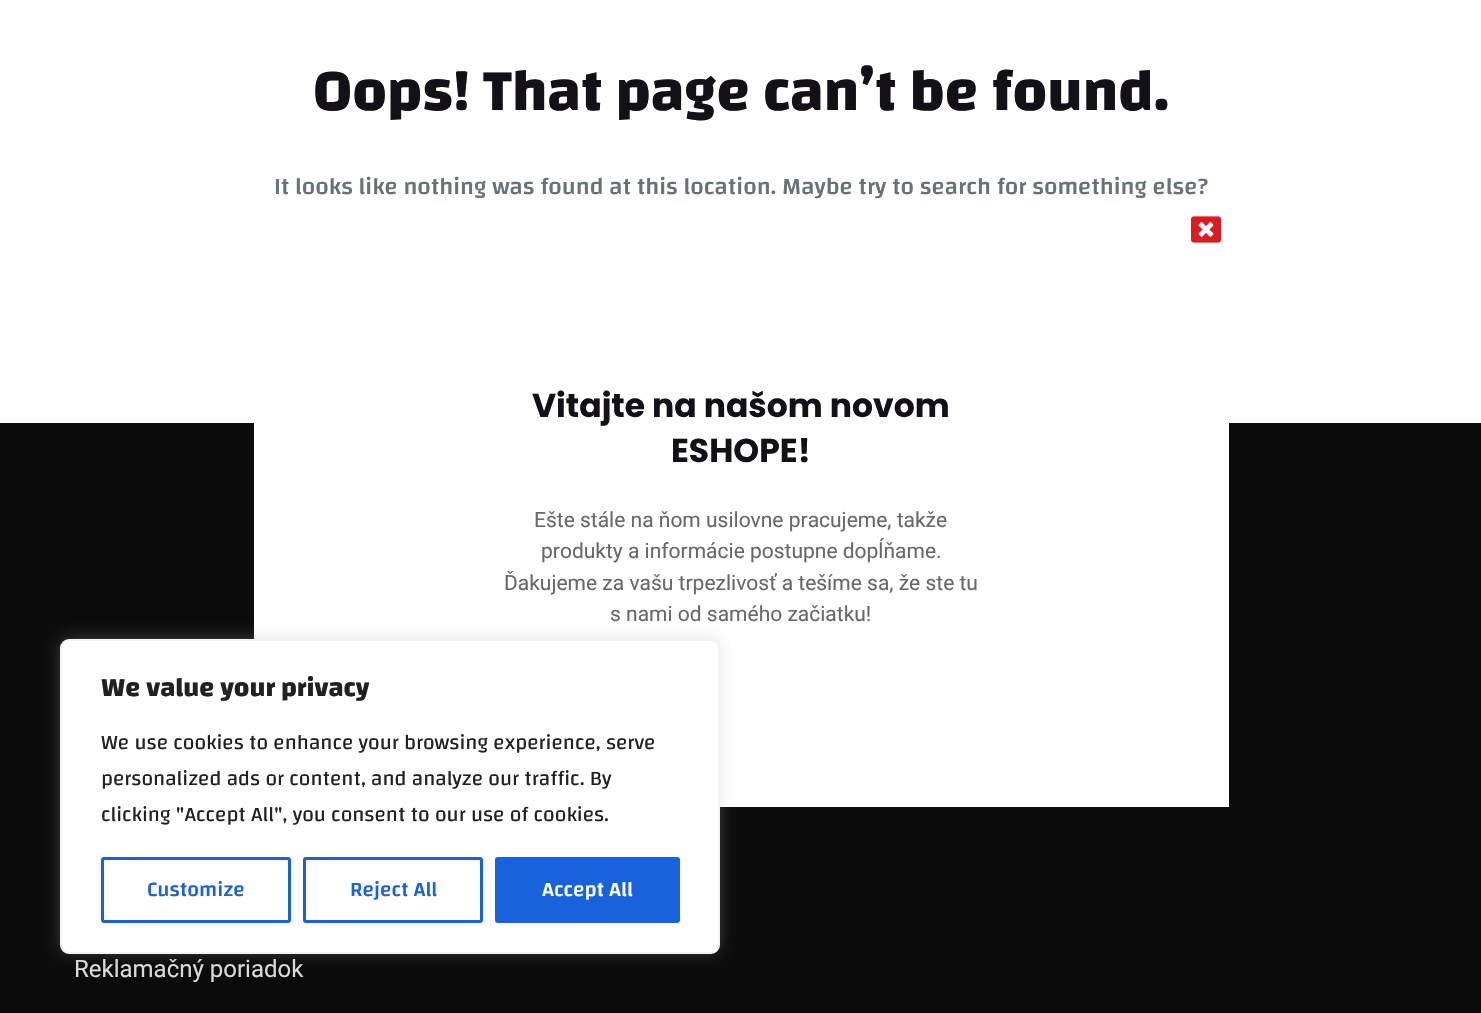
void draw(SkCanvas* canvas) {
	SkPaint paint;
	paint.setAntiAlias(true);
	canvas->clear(0xffffffff);
	SkFont f1(fontMgr->matchFamilyStyle("Changa", SkFontStyle::Bold()), 60);
	f1.setSubpixel(true);
	paint.setColor(0xff131117);
	canvas->drawString("Oops! That page can’t be found.", 313, 110, f1, paint);
	SkFont f2(fontMgr->matchFamilyStyle("Changa", SkFontStyle(500, SkFontStyle::kNormal_Width, SkFontStyle::kUpright_Slant)), 24);
	f2.setSubpixel(true);
	paint.setColor(0xff687279);
	canvas->drawString("It looks like nothing was found at this location. Maybe try to search for something else?", 274, 194, f2, paint);
	paint.setColor(0xff0b0b0b);
	canvas->drawRect(SkRect::MakeXYWH(0, 423, 1481, 590), paint);
	SkFont f3(fontMgr->matchFamilyStyle("Roboto", SkFontStyle::Normal()), 24);
	f3.setSubpixel(true);
	paint.setColor(0xffdadada);
	canvas->drawString("Reklamačný poriadok", 74, 977, f3, paint);
	paint.setColor(0xffffffff);
	canvas->drawRect(SkRect::MakeXYWH(254, 423, 975, 384), paint);
	canvas->drawImageRect(SkImages::DeferredFromEncodedData(SkData::MakeFromFileName("img1.png")), SkRect::MakeXYWH(1191, 216, 30, 27), SkSamplingOptions());
	SkFont f4(fontMgr->matchFamilyStyle("Poppins", SkFontStyle::Bold()), 33);
	f4.setSubpixel(true);
	paint.setColor(0xff131117);
	canvas->drawString("Vitajte na našom novom", 532, 417, f4, paint);
	canvas->drawString("ESHOPE!", 671, 462, f4, paint);
	SkFont f5(fontMgr->matchFamilyStyle("Roboto", SkFontStyle::Normal()), 21);
	f5.setSubpixel(true);
	paint.setColor(0xff686868);
	canvas->drawString("Ešte stále na ňom usilovne pracujeme, takže", 534, 527, f5, paint);
	canvas->drawString("produkty a informácie postupne dopĺňame.", 541, 558, f5, paint);
	canvas->drawString("Ďakujeme za vašu trpezlivosť a tešíme sa, že ste tu", 504, 590, f5, paint);
	canvas->drawString("s nami od samého začiatku!", 610, 621, f5, paint);
	paint.setColor(0x4dacabab);
	paint.setMaskFilter(SkMaskFilter::MakeBlur(kNormal_SkBlurStyle, 7.5));
	canvas->drawRoundRect(SkRect::MakeXYWH(60, 638, 660, 315), 9, 9, paint);
	paint.setMaskFilter(nullptr);
	paint.setColor(0xffffffff);
	canvas->drawRoundRect(SkRect::MakeXYWH(61, 640, 658, 313), 8, 8, paint);
	paint.setStroke(true);
	paint.setStrokeWidth(2);
	paint.setColor(0xfff4f4f4);
	canvas->drawRoundRect(SkRect::MakeXYWH(61, 640, 658, 313), 8, 8, paint);
	SkFont f6(fontMgr->matchFamilyStyle("Changa", SkFontStyle::Bold()), 27);
	f6.setSubpixel(true);
	paint.setStroke(false);
	paint.setColor(0xff212121);
	canvas->drawString("We value your privacy", 101, 696, f6, paint);
	SkFont f7(fontMgr->matchFamilyStyle("Changa", SkFontStyle::Normal()), 21);
	f7.setSubpixel(true);
	canvas->drawString("We use cookies to enhance your browsing experience, serve", 101, 749, f7, paint);
	canvas->drawString("personalized ads or content, and analyze our traffic. By", 101, 785, f7, paint);
	canvas->drawString("clicking \"Accept All\", you consent to our use of cookies.", 101, 821, f7, paint);
	paint.setStroke(true);
	paint.setStrokeWidth(3);
	paint.setColor(0xff1863dc);
	canvas->drawRoundRect(SkRect::MakeXYWH(102.5, 858.5, 187, 63), 1.5, 1.5, paint);
	SkFont f8(fontMgr->matchFamilyStyle("Changa", SkFontStyle(500, SkFontStyle::kNormal_Width, SkFontStyle::kUpright_Slant)), 21);
	f8.setSubpixel(true);
	paint.setStroke(false);
	canvas->drawString("Customize", 147, 896, f8, paint);
	paint.setStroke(true);
	canvas->drawRoundRect(SkRect::MakeXYWH(304.5, 858.5, 177, 63), 1.5, 1.5, paint);
	paint.setStroke(false);
	canvas->drawString("Reject All", 350, 896, f8, paint);
	canvas->drawRoundRect(SkRect::MakeXYWH(496.5, 858.5, 182, 63), 1.5, 1.5, paint);
	paint.setStroke(true);
	canvas->drawRoundRect(SkRect::MakeXYWH(496.5, 858.5, 182, 63), 1.5, 1.5, paint);
	paint.setStroke(false);
	paint.setColor(0xffffffff);
	canvas->drawString("Accept All", 542, 896, f8, paint);
}
